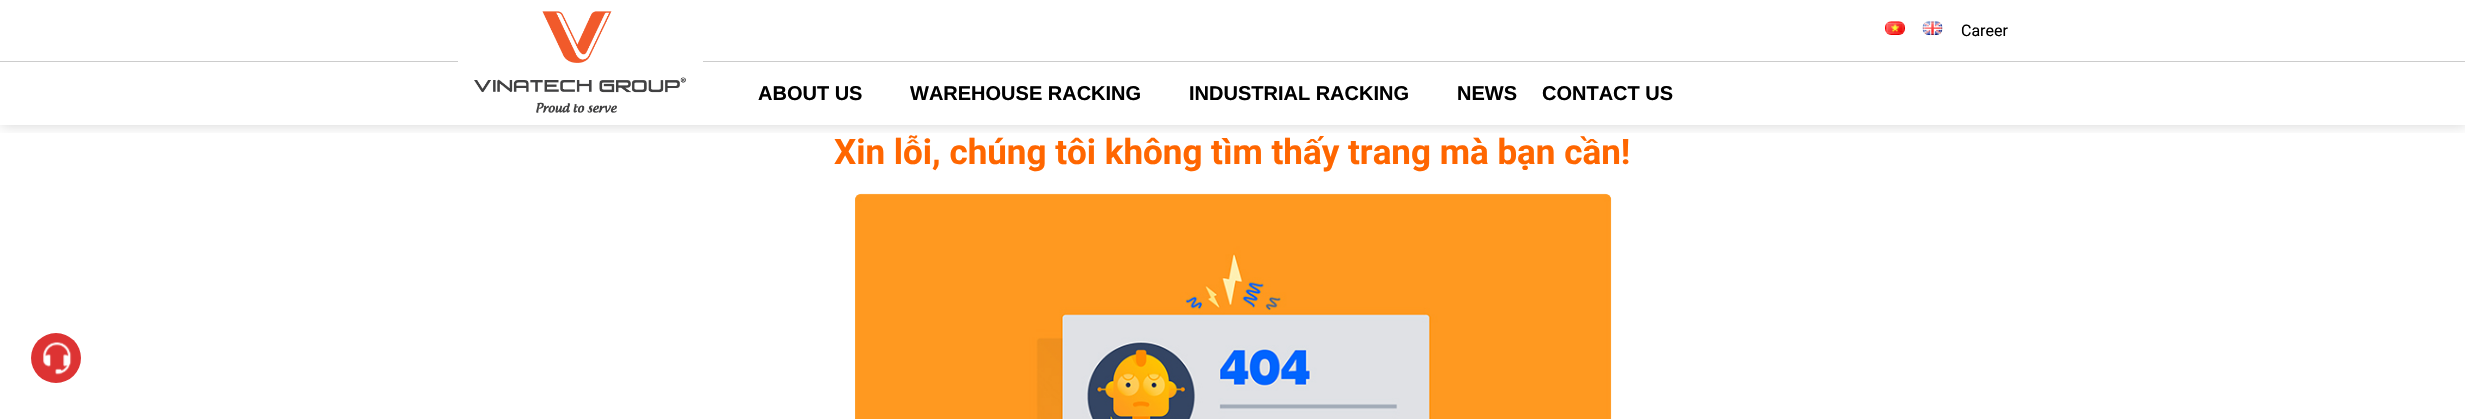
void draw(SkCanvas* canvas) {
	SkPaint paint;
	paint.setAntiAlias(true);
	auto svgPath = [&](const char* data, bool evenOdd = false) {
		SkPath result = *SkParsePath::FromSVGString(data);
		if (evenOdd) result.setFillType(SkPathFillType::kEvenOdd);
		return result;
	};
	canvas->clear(0xffffffff);
	canvas->save();
	canvas->clipRect(SkRect::MakeXYWH(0, 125, 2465, 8));
	paint.setColor(0x26000000);
	paint.setMaskFilter(SkMaskFilter::MakeBlur(kNormal_SkBlurStyle, 6));
	canvas->drawRect(SkRect::MakeXYWH(1, 1, 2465, 125), paint);
	paint.setMaskFilter(nullptr);
	canvas->restore();
	paint.setColor(0xffcccccc);
	canvas->drawRect(SkRect::MakeXYWH(0, 61, 2465, 1), paint);
	canvas->drawImageRect(SkImages::DeferredFromEncodedData(SkData::MakeFromFileName("img1.png")), SkRect::MakeXYWH(1885, 21, 20, 14), SkSamplingOptions());
	canvas->drawImageRect(SkImages::DeferredFromEncodedData(SkData::MakeFromFileName("img2.png")), SkRect::MakeXYWH(1922, 21, 21, 14), SkSamplingOptions());
	SkFont f1(fontMgr->matchFamilyStyle("Roboto", SkFontStyle::Normal()), 16);
	f1.setSubpixel(true);
	paint.setColor(0xff000000);
	canvas->drawString("Career", 1961, 36, f1, paint);
	paint.setColor(0xffffffff);
	canvas->drawPath(svgPath("M458 0H703V112C703 119 697 125 690 125H471C464 125 458 119 458 112Z"), paint);
	canvas->drawImageRect(SkImages::DeferredFromEncodedData(SkData::MakeFromFileName("img3.png")), SkRect::MakeXYWH(474, 11, 212, 102), SkSamplingOptions());
	SkFont f2(fontMgr->matchFamilyStyle("Liberation Sans", SkFontStyle::Bold()), 20);
	f2.setSubpixel(true);
	paint.setColor(0xff000000);
	canvas->drawString("ABOUT US", 758, 100, f2, paint);
	canvas->drawString("WAREHOUSE RACKING", 910, 100, f2, paint);
	canvas->drawString("INDUSTRIAL RACKING", 1189, 100, f2, paint);
	canvas->drawString("NEWS", 1457, 100, f2, paint);
	canvas->drawString("CONTACT US", 1542, 100, f2, paint);
	SkFont f3(fontMgr->matchFamilyStyle("Roboto", SkFontStyle::Bold()), 35);
	f3.setSubpixel(true);
	paint.setColor(0xffff6600);
	canvas->drawString("Xin lỗi, chúng tôi không tìm thấy trang mà bạn cần!", 834, 164, f3, paint);
	canvas->drawImageRect(SkImages::DeferredFromEncodedData(SkData::MakeFromFileName("img4.png")), SkRect::MakeXYWH(855, 193, 757, 226), SkSamplingOptions());
	paint.setColor(0xffdd3333);
	canvas->drawCircle(56, 358, 25, paint);
	canvas->drawImageRect(SkImages::DeferredFromEncodedData(SkData::MakeFromFileName("img5.png")), SkRect::MakeXYWH(43, 342, 29, 33), SkSamplingOptions());
}
